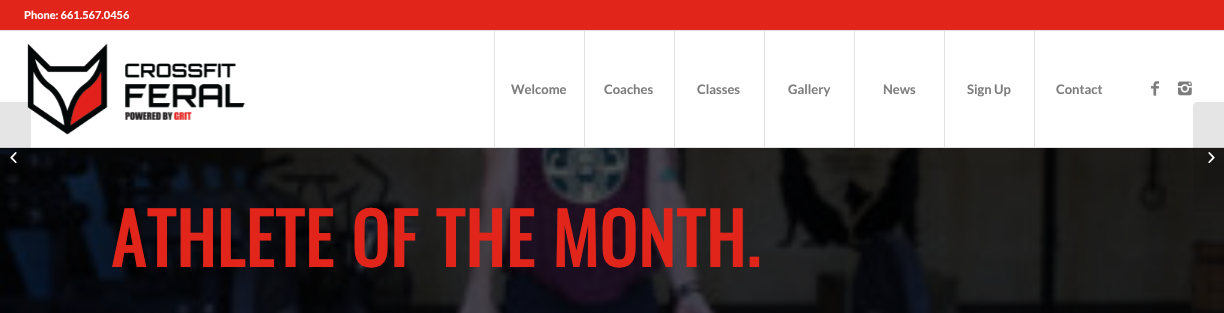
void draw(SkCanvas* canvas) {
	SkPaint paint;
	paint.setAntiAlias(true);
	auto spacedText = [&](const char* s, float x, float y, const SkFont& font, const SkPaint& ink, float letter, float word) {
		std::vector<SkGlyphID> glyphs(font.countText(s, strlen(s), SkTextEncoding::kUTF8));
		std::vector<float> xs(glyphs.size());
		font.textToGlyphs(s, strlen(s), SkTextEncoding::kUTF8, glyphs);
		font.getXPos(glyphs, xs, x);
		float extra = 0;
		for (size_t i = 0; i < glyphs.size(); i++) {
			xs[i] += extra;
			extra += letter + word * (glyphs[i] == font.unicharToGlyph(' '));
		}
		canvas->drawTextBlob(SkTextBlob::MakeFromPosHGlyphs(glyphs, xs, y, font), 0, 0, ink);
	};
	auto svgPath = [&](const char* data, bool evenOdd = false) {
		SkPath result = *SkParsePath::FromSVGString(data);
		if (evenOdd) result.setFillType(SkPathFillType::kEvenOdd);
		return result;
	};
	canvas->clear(0xffffffff);
	paint.setColor(0xffe1251b);
	canvas->drawRect(SkRect::MakeXYWH(0, 0, 1224, 30), paint);
	paint.setColor(0xffe1e1e1);
	canvas->drawRect(SkRect::MakeXYWH(0, 30, 1224, 1), paint);
	SkFont f1(fontMgr->matchFamilyStyle("Lato", SkFontStyle::Bold()), 11);
	f1.setSubpixel(true);
	paint.setColor(0xffffffff);
	canvas->drawString("Phone: 661.567.0456", 24, 19, f1, paint);
	paint.setColor(0xffe1e1e1);
	canvas->drawRect(SkRect::MakeXYWH(0, 147, 1224, 1), paint);
	canvas->drawImageRect(SkImages::DeferredFromEncodedData(SkData::MakeFromFileName("img1.png")), SkRect::MakeXYWH(27, 43, 218, 92), SkSamplingOptions());
	canvas->drawRect(SkRect::MakeXYWH(494, 31, 1, 116), paint);
	SkFont f2(fontMgr->matchFamilyStyle("Lato", SkFontStyle::Bold()), 13);
	f2.setSubpixel(true);
	paint.setColor(0xff7d7d7d);
	canvas->drawString("Welcome", 511, 94, f2, paint);
	paint.setColor(0xffe1e1e1);
	canvas->drawRect(SkRect::MakeXYWH(584, 31, 1, 116), paint);
	paint.setColor(0xff7d7d7d);
	canvas->drawString("Coaches", 604, 94, f2, paint);
	paint.setColor(0xffe1e1e1);
	canvas->drawRect(SkRect::MakeXYWH(674, 31, 1, 116), paint);
	paint.setColor(0xff7d7d7d);
	canvas->drawString("Classes", 697, 94, f2, paint);
	paint.setColor(0xffe1e1e1);
	canvas->drawRect(SkRect::MakeXYWH(764, 31, 1, 116), paint);
	paint.setColor(0xff7d7d7d);
	canvas->drawString("Gallery", 788, 94, f2, paint);
	paint.setColor(0xffe1e1e1);
	canvas->drawRect(SkRect::MakeXYWH(854, 31, 1, 116), paint);
	paint.setColor(0xff7d7d7d);
	canvas->drawString("News", 883, 94, f2, paint);
	paint.setColor(0xffe1e1e1);
	canvas->drawRect(SkRect::MakeXYWH(944, 31, 1, 116), paint);
	paint.setColor(0xff7d7d7d);
	canvas->drawString("Sign Up", 967, 94, f2, paint);
	paint.setColor(0xffe1e1e1);
	canvas->drawRect(SkRect::MakeXYWH(1034, 31, 1, 116), paint);
	paint.setColor(0xff7d7d7d);
	canvas->drawString("Contact", 1056, 94, f2, paint);
	canvas->drawImageRect(SkImages::DeferredFromEncodedData(SkData::MakeFromFileName("img2.png")), SkRect::MakeXYWH(1151, 81, 8, 15), SkSamplingOptions());
	canvas->drawImageRect(SkImages::DeferredFromEncodedData(SkData::MakeFromFileName("img3.png")), SkRect::MakeXYWH(1178, 81, 14, 15), SkSamplingOptions());
	canvas->drawImageRect(SkImages::DeferredFromEncodedData(SkData::MakeFromFileName("img6.png")), SkRect::MakeXYWH(0, 148, 1224, 165), SkSamplingOptions());
	paint.setColor(0x1a000000);
	canvas->drawPath(svgPath("M0 102H27C29 102 31 104 31 106V208C31 210 29 212 27 212H0Z"), paint);
	canvas->drawImageRect(SkImages::DeferredFromEncodedData(SkData::MakeFromFileName("img4.png")), SkRect::MakeXYWH(10, 152, 7, 12), SkSamplingOptions());
	canvas->drawPath(svgPath("M1197 102H1224V212H1197C1195 212 1193 210 1193 208V106C1193 104 1195 102 1197 102Z"), paint);
	canvas->drawImageRect(SkImages::DeferredFromEncodedData(SkData::MakeFromFileName("img5.png")), SkRect::MakeXYWH(1208, 152, 7, 12), SkSamplingOptions());
	SkFont f3(fontMgr->matchFamilyStyle("Oswald", SkFontStyle::Bold()), 70);
	f3.setSubpixel(true);
	paint.setColor(0xffe1251b);
	spacedText("ATHLETE OF THE MONTH.", 111, 267, f3, paint, 1, 0);
}
